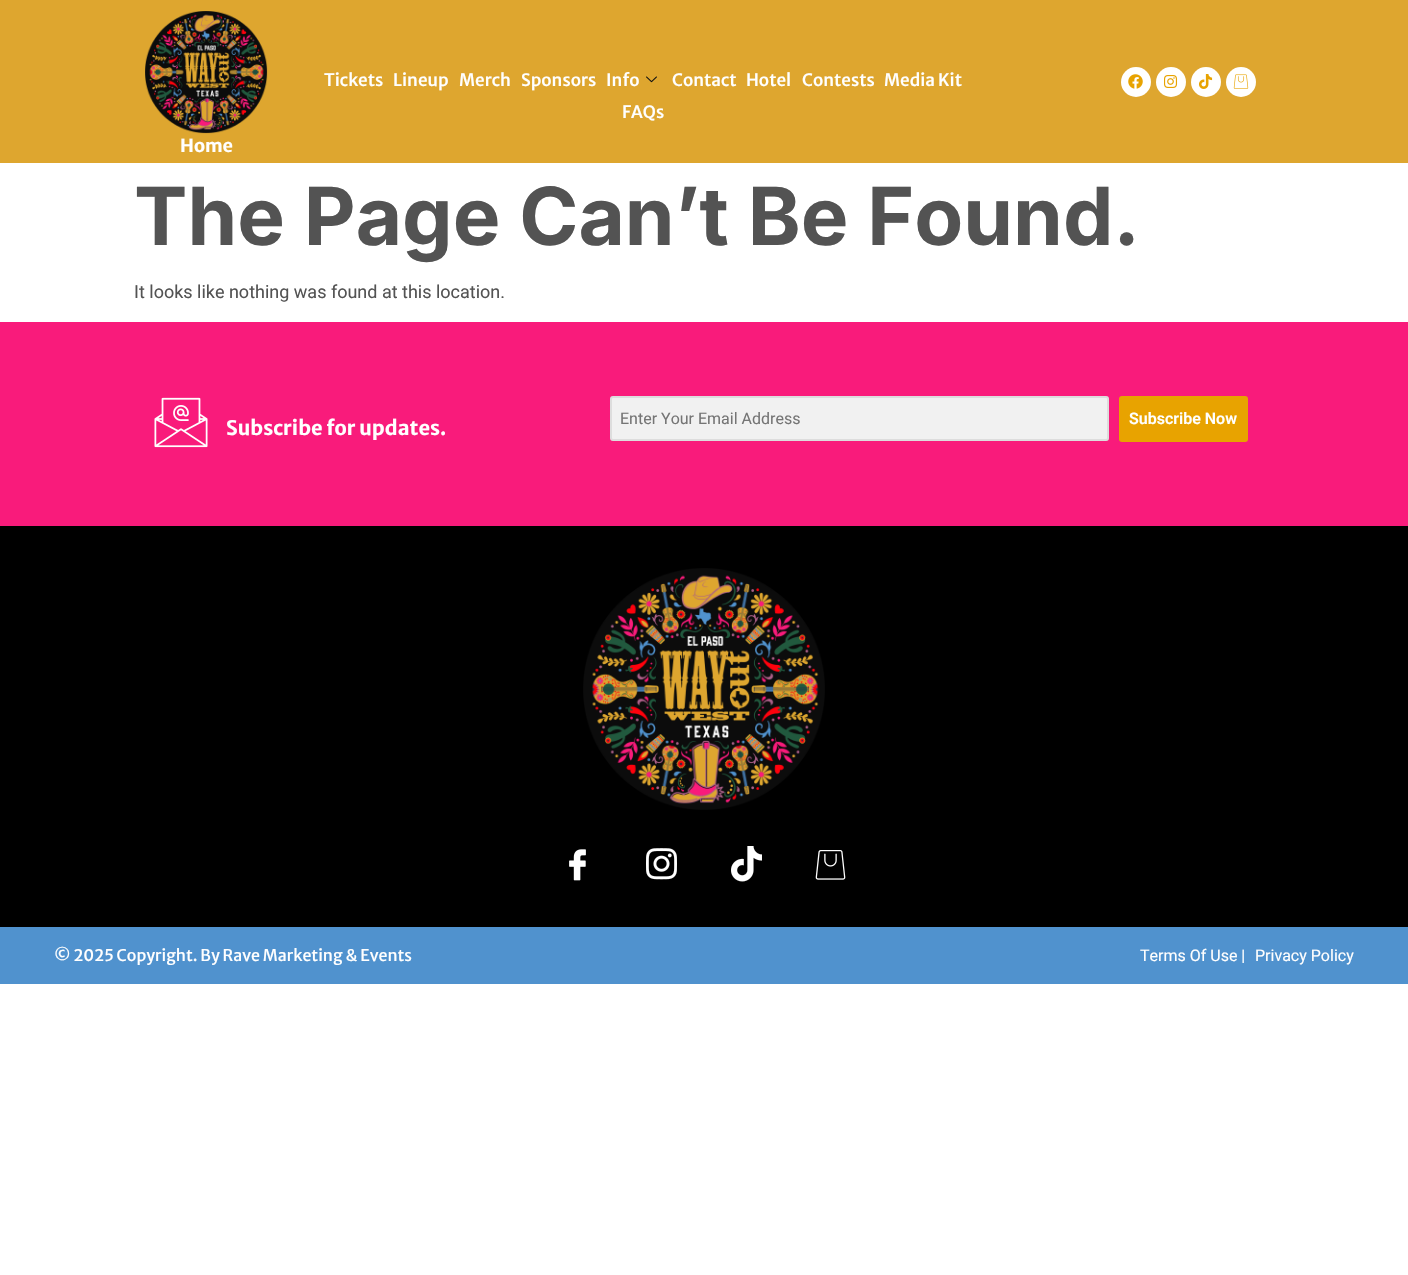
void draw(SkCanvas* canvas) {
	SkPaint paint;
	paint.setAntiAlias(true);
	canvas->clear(0xffffffff);
	paint.setColor(0xffdea62f);
	canvas->drawRect(SkRect::MakeXYWH(0, 0, 1408, 163), paint);
	SkFont f1(fontMgr->matchFamilyStyle("Merriweather Sans", SkFontStyle(500, SkFontStyle::kNormal_Width, SkFontStyle::kUpright_Slant)), 17);
	f1.setSubpixel(true);
	paint.setColor(0xffffffff);
	canvas->drawString("Tickets", 324, 86, f1, paint);
	canvas->drawString("Lineup", 393, 86, f1, paint);
	canvas->drawString("Merch", 459, 86, f1, paint);
	canvas->drawString("Sponsors", 521, 86, f1, paint);
	canvas->drawString("Info", 606, 86, f1, paint);
	canvas->drawImageRect(SkImages::DeferredFromEncodedData(SkData::MakeFromFileName("img1.png")), SkRect::MakeXYWH(646, 76, 11, 7), SkSamplingOptions());
	canvas->drawString("Contact", 672, 86, f1, paint);
	canvas->drawString("Hotel", 746, 86, f1, paint);
	canvas->drawString("Contests", 802, 86, f1, paint);
	canvas->drawString("Media Kit", 884, 86, f1, paint);
	canvas->drawString("FAQs", 622, 118, f1, paint);
	canvas->drawCircle(1136, 82, 15, paint);
	canvas->drawImageRect(SkImages::DeferredFromEncodedData(SkData::MakeFromFileName("img2.png")), SkRect::MakeXYWH(1128, 74, 15, 15), SkSamplingOptions());
	canvas->drawCircle(1171, 82, 15, paint);
	canvas->drawImageRect(SkImages::DeferredFromEncodedData(SkData::MakeFromFileName("img3.png")), SkRect::MakeXYWH(1164, 75, 14, 13), SkSamplingOptions());
	canvas->drawCircle(1206, 82, 15, paint);
	canvas->drawImageRect(SkImages::DeferredFromEncodedData(SkData::MakeFromFileName("img4.png")), SkRect::MakeXYWH(1199, 74, 14, 15), SkSamplingOptions());
	canvas->drawCircle(1241, 82, 15, paint);
	canvas->drawImageRect(SkImages::DeferredFromEncodedData(SkData::MakeFromFileName("img5.png")), SkRect::MakeXYWH(1233, 74, 16, 15), SkSamplingOptions());
	canvas->drawImageRect(SkImages::DeferredFromEncodedData(SkData::MakeFromFileName("img6.png")), SkRect::MakeXYWH(145, 11, 123, 123), SkSamplingOptions());
	SkFont f2(fontMgr->matchFamilyStyle("Merriweather Sans", SkFontStyle::Bold()), 18);
	f2.setSubpixel(true);
	canvas->drawString("Home", 180, 152, f2, paint);
	SkFont f3(fontMgr->matchFamilyStyle("Inter", SkFontStyle::Bold()), 80);
	f3.setSubpixel(true);
	paint.setColor(0xff535353);
	canvas->drawString("The Page Can’t Be Found.", 134, 245, f3, paint);
	SkFont f4(fontMgr->matchFamilyStyle("Roboto", SkFontStyle::Normal()), 18);
	f4.setSubpixel(true);
	canvas->drawString("It looks like nothing was found at this location.", 134, 298, f4, paint);
	paint.setColor(0xfff91b7b);
	canvas->drawRect(SkRect::MakeXYWH(0, 322, 1408, 204), paint);
	canvas->drawImageRect(SkImages::DeferredFromEncodedData(SkData::MakeFromFileName("img7.png")), SkRect::MakeXYWH(154, 397, 54, 51), SkSamplingOptions());
	SkFont f5(fontMgr->matchFamilyStyle("Merriweather Sans", SkFontStyle::Bold()), 20);
	f5.setSubpixel(true);
	paint.setColor(0xffffffff);
	canvas->drawString("Subscribe for updates.", 226, 435, f5, paint);
	paint.setColor(0xfff1f1f1);
	canvas->drawRoundRect(SkRect::MakeXYWH(610, 396, 499, 45), 3, 3, paint);
	paint.setStroke(true);
	paint.setStrokeWidth(2);
	paint.setColor(0x1a333333);
	canvas->drawRoundRect(SkRect::MakeXYWH(611, 397, 497, 43), 2, 2, paint);
	SkFont f6(fontMgr->matchFamilyStyle("Roboto", SkFontStyle::Normal()), 16);
	f6.setSubpixel(true);
	paint.setStroke(false);
	paint.setColor(0xff757575);
	canvas->drawString("Enter Your Email Address", 620, 424, f6, paint);
	paint.setColor(0xffe8a300);
	canvas->drawRoundRect(SkRect::MakeXYWH(1119, 396, 129, 46), 3, 3, paint);
	SkFont f7(fontMgr->matchFamilyStyle("Roboto", SkFontStyle(600, SkFontStyle::kNormal_Width, SkFontStyle::kUpright_Slant)), 16);
	f7.setSubpixel(true);
	paint.setColor(0xffffffff);
	canvas->drawString("Subscribe Now", 1129, 424, f7, paint);
	paint.setColor(0xff000000);
	canvas->drawRect(SkRect::MakeXYWH(0, 526, 1408, 401), paint);
	canvas->drawImageRect(SkImages::DeferredFromEncodedData(SkData::MakeFromFileName("img8.png")), SkRect::MakeXYWH(583, 568, 242, 242), SkSamplingOptions());
	canvas->drawImageRect(SkImages::DeferredFromEncodedData(SkData::MakeFromFileName("img9.png")), SkRect::MakeXYWH(569, 849, 17, 32), SkSamplingOptions());
	canvas->drawImageRect(SkImages::DeferredFromEncodedData(SkData::MakeFromFileName("img10.png")), SkRect::MakeXYWH(646, 848, 31, 32), SkSamplingOptions());
	canvas->drawImageRect(SkImages::DeferredFromEncodedData(SkData::MakeFromFileName("img11.png")), SkRect::MakeXYWH(731, 846, 31, 36), SkSamplingOptions());
	canvas->drawImageRect(SkImages::DeferredFromEncodedData(SkData::MakeFromFileName("img12.png")), SkRect::MakeXYWH(815, 850, 31, 30), SkSamplingOptions());
	paint.setColor(0xff5092ce);
	canvas->drawRect(SkRect::MakeXYWH(0, 927, 1408, 57), paint);
	SkFont f8(fontMgr->matchFamilyStyle("Merriweather Sans", SkFontStyle::Normal()), 16);
	f8.setSubpixel(true);
	paint.setColor(0xffffffff);
	canvas->drawString("© 2025 Copyright. By Rave Marketing & Events", 54, 961, f8, paint);
	canvas->drawString("Terms Of Use |", 1140, 961, f6, paint);
	canvas->drawString("Privacy Policy", 1255, 961, f6, paint);
}
